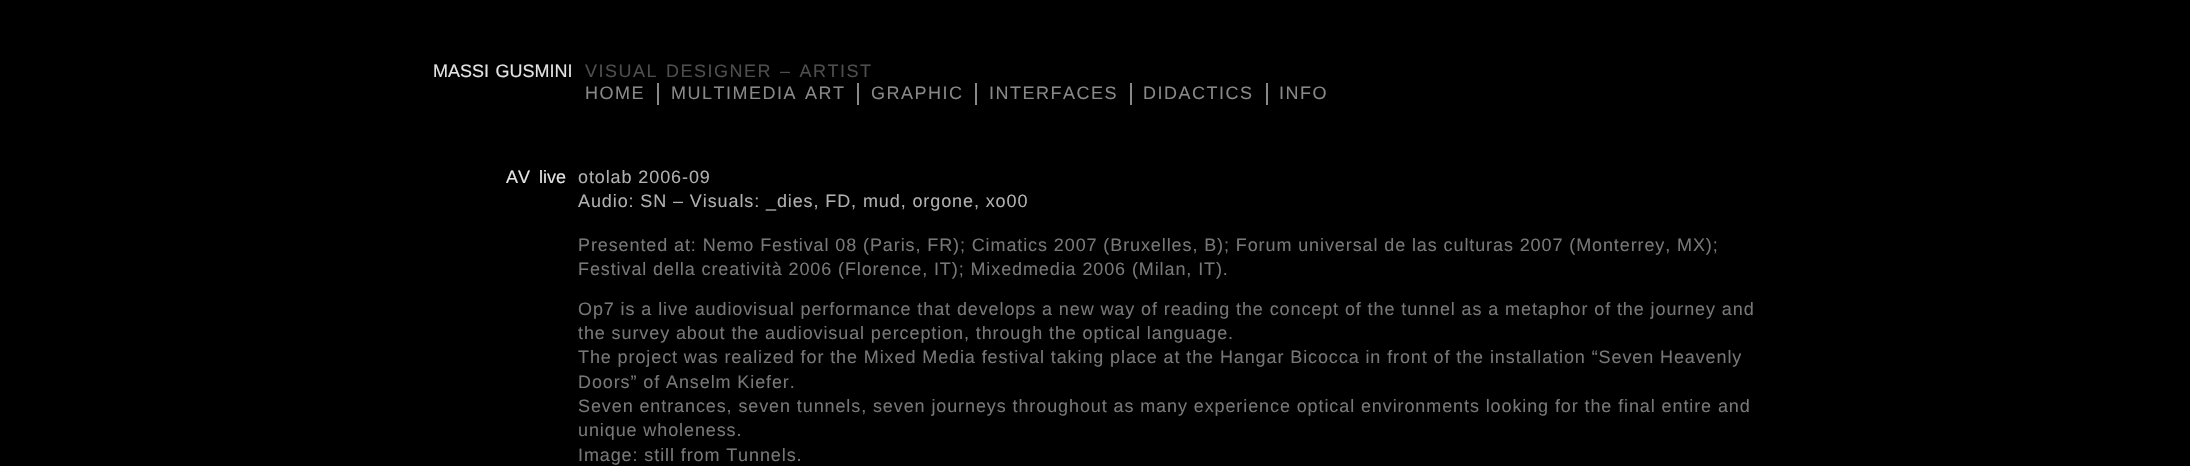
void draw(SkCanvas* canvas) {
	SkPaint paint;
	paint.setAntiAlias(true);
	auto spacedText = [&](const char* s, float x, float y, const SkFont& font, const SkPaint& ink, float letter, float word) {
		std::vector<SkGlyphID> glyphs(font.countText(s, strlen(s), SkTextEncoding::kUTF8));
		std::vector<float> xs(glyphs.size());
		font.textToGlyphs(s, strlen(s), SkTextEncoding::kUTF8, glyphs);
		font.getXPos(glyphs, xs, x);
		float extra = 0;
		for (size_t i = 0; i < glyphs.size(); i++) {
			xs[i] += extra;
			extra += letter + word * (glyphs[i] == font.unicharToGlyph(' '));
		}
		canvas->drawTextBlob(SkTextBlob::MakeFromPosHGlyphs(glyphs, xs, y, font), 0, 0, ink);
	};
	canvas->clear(0xff000000);
	SkFont f1(fontMgr->matchFamilyStyle("Liberation Sans", SkFontStyle::Normal()), 18);
	f1.setSubpixel(true);
	paint.setColor(0xffe4e4e4);
	spacedText("MASSI GUSMINI", 433, 77, f1, paint, 0, 1.5);
	paint.setColor(0xff4e4e4e);
	spacedText("VISUAL DESIGNER – ARTIST", 585, 77, f1, paint, 1.5, 1.5);
	paint.setColor(0xff888888);
	canvas->drawRect(SkRect::MakeXYWH(657, 83, 2, 22), paint);
	spacedText("HOME", 585, 99, f1, paint, 1.5, 0);
	canvas->drawRect(SkRect::MakeXYWH(857, 83, 2, 22), paint);
	spacedText("MULTIMEDIA ART", 671, 99, f1, paint, 1.5, 1.5);
	canvas->drawRect(SkRect::MakeXYWH(975, 83, 2, 22), paint);
	spacedText("GRAPHIC", 871, 99, f1, paint, 1.5, 0);
	canvas->drawRect(SkRect::MakeXYWH(1130, 83, 2, 22), paint);
	spacedText("INTERFACES", 989, 99, f1, paint, 1.5, 0);
	canvas->drawRect(SkRect::MakeXYWH(1266, 83, 2, 22), paint);
	spacedText("DIDACTICS", 1143, 99, f1, paint, 1.5, 0);
	spacedText("INFO", 1279, 99, f1, paint, 1.5, 0);
	paint.setColor(0xffe4e4e4);
	spacedText("AV live", 506, 183, f1, paint, 0, 4);
	paint.setColor(0xffb0b0b0);
	spacedText("otolab 2006-09", 578, 183, f1, paint, 0.9, 0);
	spacedText("Audio: SN – Visuals: _dies, FD, mud, orgone, xo00", 578, 207, f1, paint, 0.9, 0);
	paint.setColor(0xff777777);
	spacedText("Presented at: Nemo Festival 08 (Paris, FR); Cimatics 2007 (Bruxelles, B); Forum universal de las culturas 2007 (Monterrey, MX);", 578, 251, f1, paint, 0.9, 0);
	spacedText("Festival della creatività 2006 (Florence, IT); Mixedmedia 2006 (Milan, IT).", 578, 275, f1, paint, 0.9, 0);
	spacedText("Op7 is a live audiovisual performance that develops a new way of reading the concept of the tunnel as a metaphor of the journey and", 578, 315, f1, paint, 0.9, 0);
	spacedText("the survey about the audiovisual perception, through the optical language.", 578, 339, f1, paint, 0.9, 0);
	spacedText("The project was realized for the Mixed Media festival taking place at the Hangar Bicocca in front of the installation “Seven Heavenly", 578, 363, f1, paint, 0.9, 0);
	spacedText("Doors” of Anselm Kiefer.", 578, 388, f1, paint, 0.9, 0);
	spacedText("Seven entrances, seven tunnels, seven journeys throughout as many experience optical environments looking for the final entire and", 578, 412, f1, paint, 0.9, 0);
	spacedText("unique wholeness.", 578, 436, f1, paint, 0.9, 0);
	spacedText("Image: still from Tunnels.", 578, 461, f1, paint, 0.9, 0);
}
